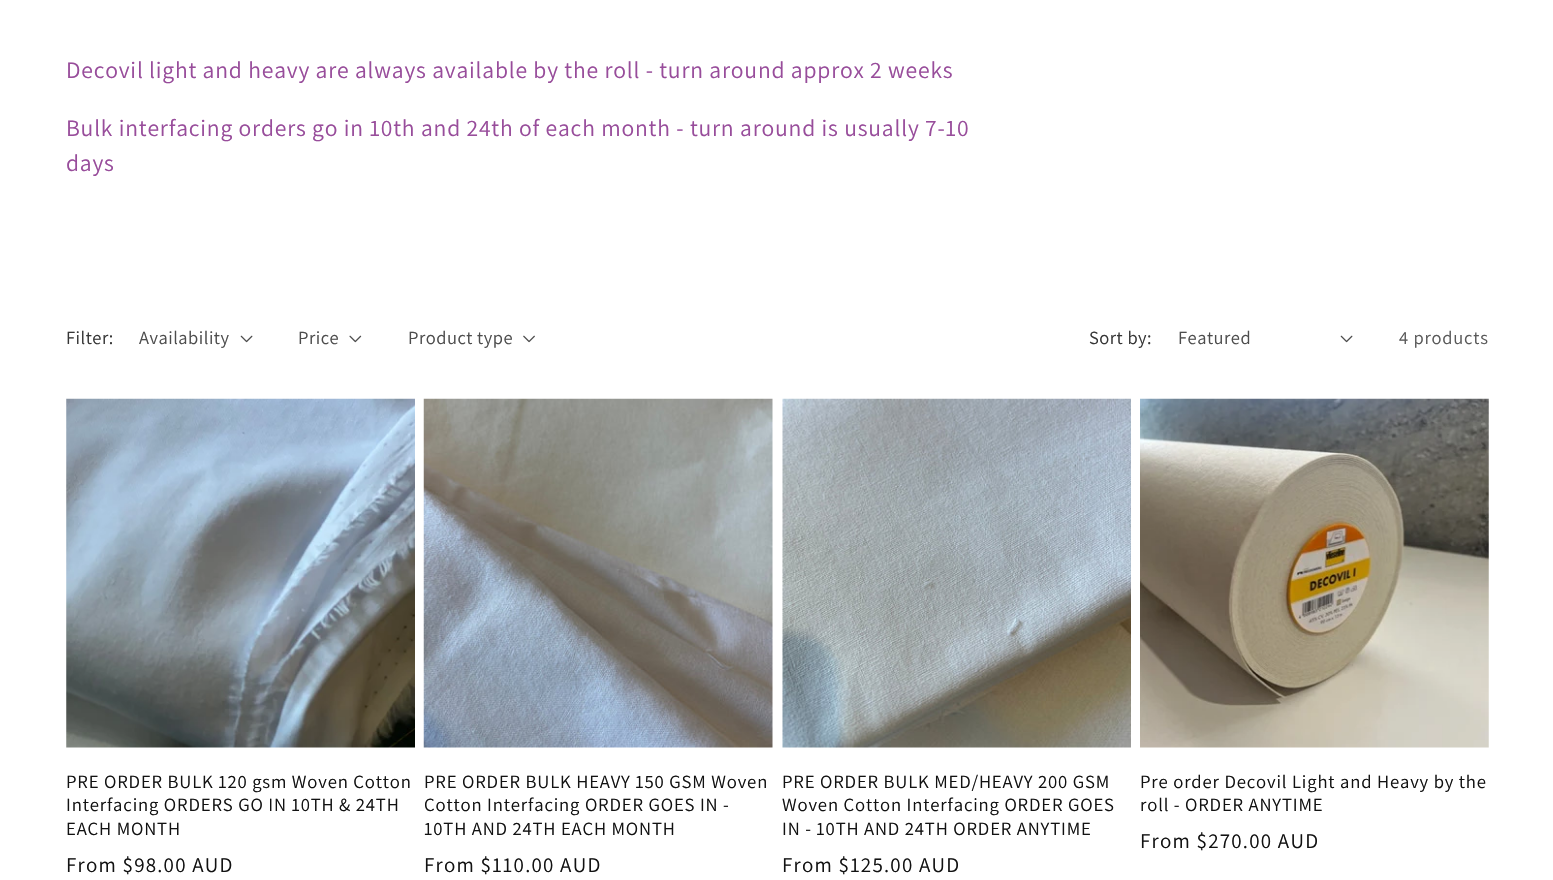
void draw(SkCanvas* canvas) {
	SkPaint paint;
	paint.setAntiAlias(true);
	auto spacedText = [&](const char* s, float x, float y, const SkFont& font, const SkPaint& ink, float letter, float word) {
		std::vector<SkGlyphID> glyphs(font.countText(s, strlen(s), SkTextEncoding::kUTF8));
		std::vector<float> xs(glyphs.size());
		font.textToGlyphs(s, strlen(s), SkTextEncoding::kUTF8, glyphs);
		font.getXPos(glyphs, xs, x);
		float extra = 0;
		for (size_t i = 0; i < glyphs.size(); i++) {
			xs[i] += extra;
			extra += letter + word * (glyphs[i] == font.unicharToGlyph(' '));
		}
		canvas->drawTextBlob(SkTextBlob::MakeFromPosHGlyphs(glyphs, xs, y, font), 0, 0, ink);
	};
	canvas->clear(0xffffffff);
	SkFont f1(fontMgr->matchFamilyStyle("Assistant", SkFontStyle::Normal()), 23.6);
	f1.setSubpixel(true);
	paint.setColor(0xff984d9b);
	spacedText("Decovil light and heavy are always available by the roll - turn around approx 2 weeks", 66, 78, f1, paint, 0.8, 0);
	spacedText("Bulk interfacing orders go in 10th and 24th of each month - turn around is usually 7-10", 66, 136, f1, paint, 0.8, 0);
	spacedText("days", 66, 171, f1, paint, 0.8, 0);
	SkFont f2(fontMgr->matchFamilyStyle("Assistant", SkFontStyle::Normal()), 18.5);
	f2.setSubpixel(true);
	paint.setColor(0xff363636);
	spacedText("Filter:", 66, 344, f2, paint, 0.5, 0);
	paint.setColor(0xff4d4d4d);
	spacedText("Availability", 139, 344, f2, paint, 0.5, 0);
	canvas->drawImageRect(SkImages::DeferredFromEncodedData(SkData::MakeFromFileName("img1.png")), SkRect::MakeXYWH(240, 335, 13, 8), SkSamplingOptions());
	spacedText("Price", 298, 344, f2, paint, 0.5, 0);
	canvas->drawImageRect(SkImages::DeferredFromEncodedData(SkData::MakeFromFileName("img2.png")), SkRect::MakeXYWH(349, 335, 13, 8), SkSamplingOptions());
	spacedText("Product type", 408, 344, f2, paint, 0.5, 0);
	canvas->drawImageRect(SkImages::DeferredFromEncodedData(SkData::MakeFromFileName("img3.png")), SkRect::MakeXYWH(523, 335, 12, 8), SkSamplingOptions());
	paint.setColor(0xff363636);
	spacedText("Sort by:", 1089, 344, f2, paint, 0.5, 0);
	paint.setColor(0xff4d4d4d);
	spacedText("Featured", 1178, 344, f2, paint, 0.5, 0);
	canvas->drawImageRect(SkImages::DeferredFromEncodedData(SkData::MakeFromFileName("img1.png")), SkRect::MakeXYWH(1340, 335, 13, 8), SkSamplingOptions());
	paint.setColor(0xff595959);
	spacedText("4 products", 1399, 344, f2, paint, 0.8, 0);
	canvas->drawImageRect(SkImages::DeferredFromEncodedData(SkData::MakeFromFileName("img4.png")), SkRect::MakeXYWH(66, 398, 349, 350), SkSamplingOptions());
	SkFont f3(fontMgr->matchFamilyStyle("Assistant", SkFontStyle::Normal()), 18.7);
	f3.setSubpixel(true);
	paint.setColor(0xff121212);
	spacedText("PRE ORDER BULK 120 gsm Woven Cotton", 66, 788, f3, paint, 0.85, 0);
	spacedText("Interfacing ORDERS GO IN 10TH & 24TH", 66, 811, f3, paint, 0.85, 0);
	spacedText("EACH MONTH", 66, 835, f3, paint, 0.85, 0);
	SkFont f4(fontMgr->matchFamilyStyle("Assistant", SkFontStyle::Normal()), 21);
	f4.setSubpixel(true);
	spacedText("From $98.00 AUD", 66, 872, f4, paint, 1.25, 0);
	canvas->drawImageRect(SkImages::DeferredFromEncodedData(SkData::MakeFromFileName("img5.png")), SkRect::MakeXYWH(423, 398, 350, 350), SkSamplingOptions());
	spacedText("PRE ORDER BULK HEAVY 150 GSM Woven", 424, 788, f3, paint, 0.85, 0);
	spacedText("Cotton Interfacing ORDER GOES IN -", 424, 811, f3, paint, 0.85, 0);
	spacedText("10TH AND 24TH EACH MONTH", 424, 835, f3, paint, 0.85, 0);
	spacedText("From $110.00 AUD", 424, 872, f4, paint, 1.25, 0);
	canvas->drawImageRect(SkImages::DeferredFromEncodedData(SkData::MakeFromFileName("img6.png")), SkRect::MakeXYWH(782, 398, 349, 350), SkSamplingOptions());
	spacedText("PRE ORDER BULK MED/HEAVY 200 GSM", 782, 788, f3, paint, 0.85, 0);
	spacedText("Woven Cotton Interfacing ORDER GOES", 782, 811, f3, paint, 0.85, 0);
	spacedText("IN - 10TH AND 24TH ORDER ANYTIME", 782, 835, f3, paint, 0.85, 0);
	spacedText("From $125.00 AUD", 782, 872, f4, paint, 1.25, 0);
	canvas->drawImageRect(SkImages::DeferredFromEncodedData(SkData::MakeFromFileName("img7.png")), SkRect::MakeXYWH(1140, 398, 349, 350), SkSamplingOptions());
	spacedText("Pre order Decovil Light and Heavy by the", 1140, 788, f3, paint, 0.85, 0);
	spacedText("roll - ORDER ANYTIME", 1140, 811, f3, paint, 0.85, 0);
	spacedText("From $270.00 AUD", 1140, 848, f4, paint, 1.25, 0);
}
